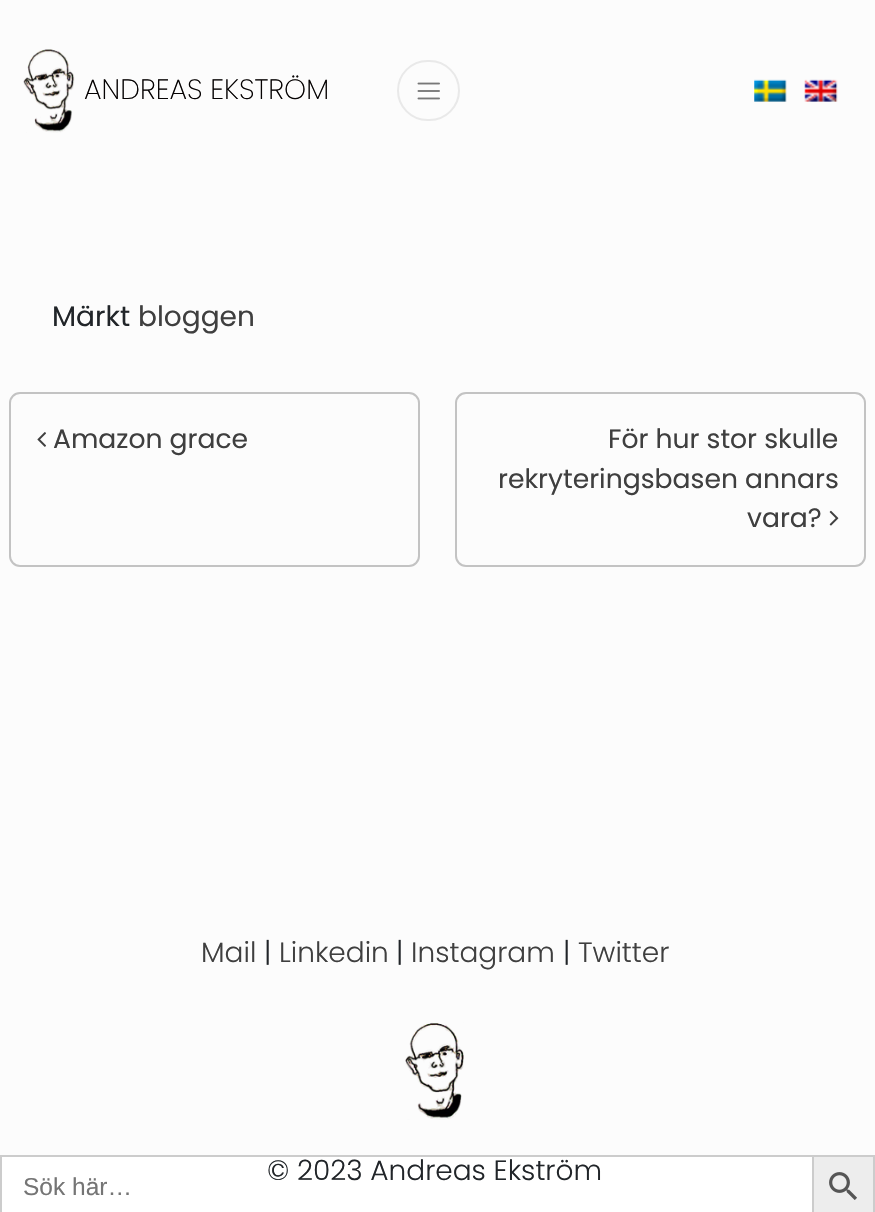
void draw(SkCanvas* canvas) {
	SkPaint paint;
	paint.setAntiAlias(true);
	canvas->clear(0xfffcfcfc);
	canvas->drawImageRect(SkImages::DeferredFromEncodedData(SkData::MakeFromFileName("img1.png")), SkRect::MakeXYWH(23, 49, 52, 84), SkSamplingOptions());
	SkFont f1(fontMgr->matchFamilyStyle("Poppins", SkFontStyle(200, SkFontStyle::kNormal_Width, SkFontStyle::kUpright_Slant)), 28);
	f1.setSubpixel(true);
	paint.setColor(0xff050202);
	canvas->drawString("ANDREAS EKSTRÖM", 84, 99, f1, paint);
	paint.setStroke(true);
	paint.setStrokeWidth(2);
	paint.setColor(0xffe9e9e9);
	canvas->drawRoundRect(SkRect::MakeXYWH(398, 61, 61, 59), 29.5, 29.5, paint);
	canvas->drawImageRect(SkImages::DeferredFromEncodedData(SkData::MakeFromFileName("img2.png")), SkRect::MakeXYWH(417, 82, 23, 18), SkSamplingOptions());
	canvas->drawImageRect(SkImages::DeferredFromEncodedData(SkData::MakeFromFileName("img3.png")), SkRect::MakeXYWH(754, 79, 33, 23), SkSamplingOptions());
	canvas->drawImageRect(SkImages::DeferredFromEncodedData(SkData::MakeFromFileName("img4.png")), SkRect::MakeXYWH(804, 79, 34, 23), SkSamplingOptions());
	SkFont f2(fontMgr->matchFamilyStyle("Poppins", SkFontStyle::Normal()), 28);
	f2.setSubpixel(true);
	paint.setStroke(false);
	paint.setColor(0xff212529);
	canvas->drawString("Märkt", 52, 326, f2, paint);
	paint.setColor(0xff3f3f3f);
	canvas->drawString("bloggen", 138, 326, f2, paint);
	paint.setStroke(true);
	paint.setColor(0xffc3c3c3);
	canvas->drawRoundRect(SkRect::MakeXYWH(10, 393, 409, 173), 10, 10, paint);
	canvas->drawImageRect(SkImages::DeferredFromEncodedData(SkData::MakeFromFileName("img5.png")), SkRect::MakeXYWH(37, 432, 9, 15), SkSamplingOptions());
	SkFont f3(fontMgr->matchFamilyStyle("Poppins", SkFontStyle::Normal()), 26.6);
	f3.setSubpixel(true);
	paint.setStroke(false);
	paint.setColor(0xff3f3f3f);
	canvas->drawString("Amazon grace", 53, 448, f3, paint);
	paint.setStroke(true);
	paint.setColor(0xffc3c3c3);
	canvas->drawRoundRect(SkRect::MakeXYWH(456, 393, 409, 173), 10, 10, paint);
	paint.setStroke(false);
	paint.setColor(0xff3f3f3f);
	canvas->drawString("För hur stor skulle", 608, 448, f3, paint);
	canvas->drawString("rekryteringsbasen annars", 498, 488, f3, paint);
	canvas->drawString("vara?", 747, 527, f3, paint);
	canvas->drawImageRect(SkImages::DeferredFromEncodedData(SkData::MakeFromFileName("img6.png")), SkRect::MakeXYWH(829, 510, 10, 16), SkSamplingOptions());
	SkFont f4(fontMgr->matchFamilyStyle("Poppins", SkFontStyle(300, SkFontStyle::kNormal_Width, SkFontStyle::kUpright_Slant)), 28);
	f4.setSubpixel(true);
	canvas->drawString("Mail", 201, 962, f4, paint);
	paint.setColor(0xff212529);
	canvas->drawString("|", 264, 962, f4, paint);
	paint.setColor(0xff3f3f3f);
	canvas->drawString("Linkedin", 279, 962, f4, paint);
	paint.setColor(0xff212529);
	canvas->drawString("|", 396, 962, f4, paint);
	paint.setColor(0xff3f3f3f);
	canvas->drawString("Instagram", 411, 962, f4, paint);
	paint.setColor(0xff212529);
	canvas->drawString("|", 563, 962, f4, paint);
	paint.setColor(0xff3f3f3f);
	canvas->drawString("Twitter", 578, 962, f4, paint);
	canvas->drawImageRect(SkImages::DeferredFromEncodedData(SkData::MakeFromFileName("img7.png")), SkRect::MakeXYWH(405, 1022, 59, 98), SkSamplingOptions());
	paint.setColor(0xffffffff);
	canvas->drawRect(SkRect::MakeXYWH(2, 1157, 810, 55), paint);
	paint.setColor(0xff212529);
	canvas->drawString("© 2023 Andreas Ekström", 267, 1180, f4, paint);
	paint.setColor(0xffcccccc);
	canvas->drawRect(SkRect::MakeXYWH(0, 1155, 812, 2), paint);
	canvas->drawRect(SkRect::MakeXYWH(0, 1155, 2, 57), paint);
	SkFont f5(fontMgr->matchFamilyStyle("Liberation Sans", SkFontStyle::Normal()), 24.5);
	f5.setSubpixel(true);
	paint.setColor(0xff757575);
	canvas->drawString("Sök här…", 23, 1195, f5, paint);
	paint.setColor(0xffededed);
	canvas->drawRect(SkRect::MakeXYWH(813, 1156, 61, 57), paint);
	paint.setStroke(true);
	paint.setColor(0xffcccccc);
	canvas->drawRect(SkRect::MakeXYWH(813, 1156, 61, 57), paint);
	canvas->drawImageRect(SkImages::DeferredFromEncodedData(SkData::MakeFromFileName("img8.png")), SkRect::MakeXYWH(829, 1172, 28, 28), SkSamplingOptions());
}
